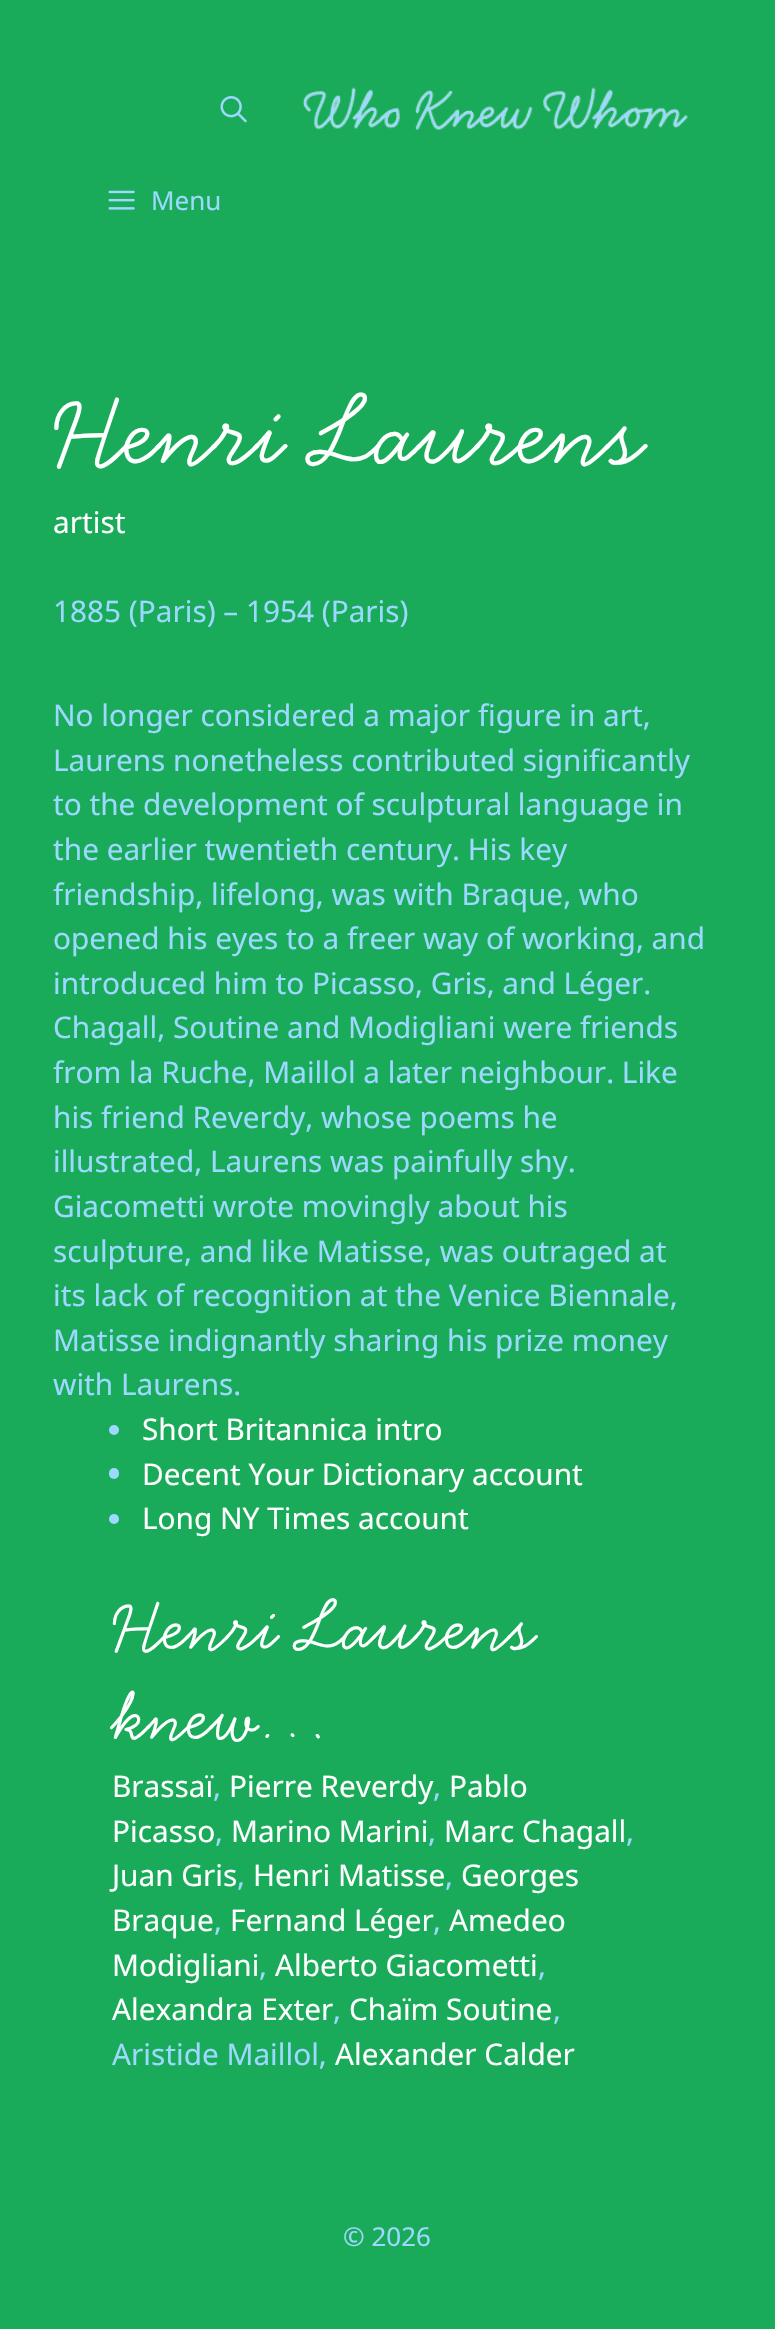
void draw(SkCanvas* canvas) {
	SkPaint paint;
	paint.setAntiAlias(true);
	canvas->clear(0xff19aa5a);
	canvas->drawImageRect(SkImages::DeferredFromEncodedData(SkData::MakeFromFileName("img1.png")), SkRect::MakeXYWH(220, 96, 27, 27), SkSamplingOptions());
	canvas->drawImageRect(SkImages::DeferredFromEncodedData(SkData::MakeFromFileName("img2.png")), SkRect::MakeXYWH(302, 87, 386, 43), SkSamplingOptions());
	canvas->drawImageRect(SkImages::DeferredFromEncodedData(SkData::MakeFromFileName("img3.png")), SkRect::MakeXYWH(108, 190, 27, 20), SkSamplingOptions());
	SkFont f1(fontMgr->matchFamilyStyle("Noto Sans", SkFontStyle::Normal()), 26);
	f1.setSubpixel(true);
	paint.setColor(0xff9dd9ff);
	canvas->drawString("Menu", 151, 210, f1, paint);
	SkFont f2(fontMgr->matchFamilyStyle("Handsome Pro", SkFontStyle::Normal()), 104);
	f2.setSubpixel(true);
	paint.setColor(0xffffffff);
	canvas->drawString("Henri Laurens", 53, 462, f2, paint);
	SkFont f3(fontMgr->matchFamilyStyle("Noto Sans", SkFontStyle::Normal()), 29.75);
	f3.setSubpixel(true);
	canvas->drawString("artist", 53, 533, f3, paint);
	paint.setColor(0xff9dd9ff);
	canvas->drawString("1885 (Paris) – 1954 (Paris)", 53, 622, f3, paint);
	canvas->drawString("No longer considered a major figure in art,", 53, 726, f3, paint);
	canvas->drawString("Laurens nonetheless contributed significantly", 53, 771, f3, paint);
	canvas->drawString("to the development of sculptural language in", 53, 815, f3, paint);
	canvas->drawString("the earlier twentieth century. His key", 53, 860, f3, paint);
	canvas->drawString("friendship, lifelong, was with Braque, who", 53, 905, f3, paint);
	canvas->drawString("opened his eyes to a freer way of working, and", 53, 949, f3, paint);
	canvas->drawString("introduced him to Picasso, Gris, and Léger.", 53, 994, f3, paint);
	canvas->drawString("Chagall, Soutine and Modigliani were friends", 53, 1038, f3, paint);
	canvas->drawString("from la Ruche, Maillol a later neighbour. Like", 53, 1083, f3, paint);
	canvas->drawString("his friend Reverdy, whose poems he", 53, 1128, f3, paint);
	canvas->drawString("illustrated, Laurens was painfully shy.", 53, 1172, f3, paint);
	canvas->drawString("Giacometti wrote movingly about his", 53, 1217, f3, paint);
	canvas->drawString("sculpture, and like Matisse, was outraged at", 53, 1262, f3, paint);
	canvas->drawString("its lack of recognition at the Venice Biennale,", 53, 1306, f3, paint);
	canvas->drawString("Matisse indignantly sharing his prize money", 53, 1351, f3, paint);
	canvas->drawString("with Laurens.", 53, 1395, f3, paint);
	canvas->drawCircle(114, 1430, 5, paint);
	paint.setColor(0xffffffff);
	canvas->drawString("Short Britannica intro", 142, 1440, f3, paint);
	paint.setColor(0xff9dd9ff);
	canvas->drawRoundRect(SkRect::MakeXYWH(109, 1468, 10, 11), 5, 5, paint);
	paint.setColor(0xffffffff);
	canvas->drawString("Decent Your Dictionary account", 142, 1485, f3, paint);
	paint.setColor(0xff9dd9ff);
	canvas->drawCircle(114, 1519, 5, paint);
	paint.setColor(0xffffffff);
	canvas->drawString("Long NY Times account", 142, 1529, f3, paint);
	SkFont f4(fontMgr->matchFamilyStyle("Handsome Pro", SkFontStyle::Normal()), 74.5);
	f4.setSubpixel(true);
	canvas->drawString("Henri Laurens", 112, 1648, f4, paint);
	canvas->drawString("knew…", 112, 1738, f4, paint);
	canvas->drawString("Brassaï", 112, 1797, f3, paint);
	paint.setColor(0xff9dd9ff);
	canvas->drawString(",", 213, 1797, f3, paint);
	paint.setColor(0xffffffff);
	canvas->drawString("Pierre Reverdy", 229, 1797, f3, paint);
	paint.setColor(0xff9dd9ff);
	canvas->drawString(",", 433, 1797, f3, paint);
	paint.setColor(0xffffffff);
	canvas->drawString("Pablo", 449, 1797, f3, paint);
	canvas->drawString("Picasso", 112, 1842, f3, paint);
	paint.setColor(0xff9dd9ff);
	canvas->drawString(",", 215, 1842, f3, paint);
	paint.setColor(0xffffffff);
	canvas->drawString("Marino Marini", 231, 1842, f3, paint);
	paint.setColor(0xff9dd9ff);
	canvas->drawString(",", 428, 1842, f3, paint);
	paint.setColor(0xffffffff);
	canvas->drawString("Marc Chagall", 444, 1842, f3, paint);
	paint.setColor(0xff9dd9ff);
	canvas->drawString(",", 626, 1842, f3, paint);
	paint.setColor(0xffffffff);
	canvas->drawString("Juan Gris", 112, 1886, f3, paint);
	paint.setColor(0xff9dd9ff);
	canvas->drawString(",", 237, 1886, f3, paint);
	paint.setColor(0xffffffff);
	canvas->drawString("Henri Matisse", 253, 1886, f3, paint);
	paint.setColor(0xff9dd9ff);
	canvas->drawString(",", 445, 1886, f3, paint);
	paint.setColor(0xffffffff);
	canvas->drawString("Georges", 461, 1886, f3, paint);
	canvas->drawString("Braque", 112, 1931, f3, paint);
	paint.setColor(0xff9dd9ff);
	canvas->drawString(",", 214, 1931, f3, paint);
	paint.setColor(0xffffffff);
	canvas->drawString("Fernand Léger", 230, 1931, f3, paint);
	paint.setColor(0xff9dd9ff);
	canvas->drawString(",", 433, 1931, f3, paint);
	paint.setColor(0xffffffff);
	canvas->drawString("Amedeo", 449, 1931, f3, paint);
	canvas->drawString("Modigliani", 112, 1976, f3, paint);
	paint.setColor(0xff9dd9ff);
	canvas->drawString(",", 259, 1976, f3, paint);
	paint.setColor(0xffffffff);
	canvas->drawString("Alberto Giacometti", 275, 1976, f3, paint);
	paint.setColor(0xff9dd9ff);
	canvas->drawString(",", 538, 1976, f3, paint);
	paint.setColor(0xffffffff);
	canvas->drawString("Alexandra Exter", 112, 2020, f3, paint);
	paint.setColor(0xff9dd9ff);
	canvas->drawString(",", 333, 2020, f3, paint);
	paint.setColor(0xffffffff);
	canvas->drawString("Chaïm Soutine", 349, 2020, f3, paint);
	paint.setColor(0xff9dd9ff);
	canvas->drawString(",", 553, 2020, f3, paint);
	canvas->drawString("Aristide Maillol,", 112, 2065, f3, paint);
	paint.setColor(0xffffffff);
	canvas->drawString("Alexander Calder", 335, 2065, f3, paint);
	paint.setColor(0xff9dd9ff);
	canvas->drawString("© 2026", 343, 2246, f1, paint);
}
